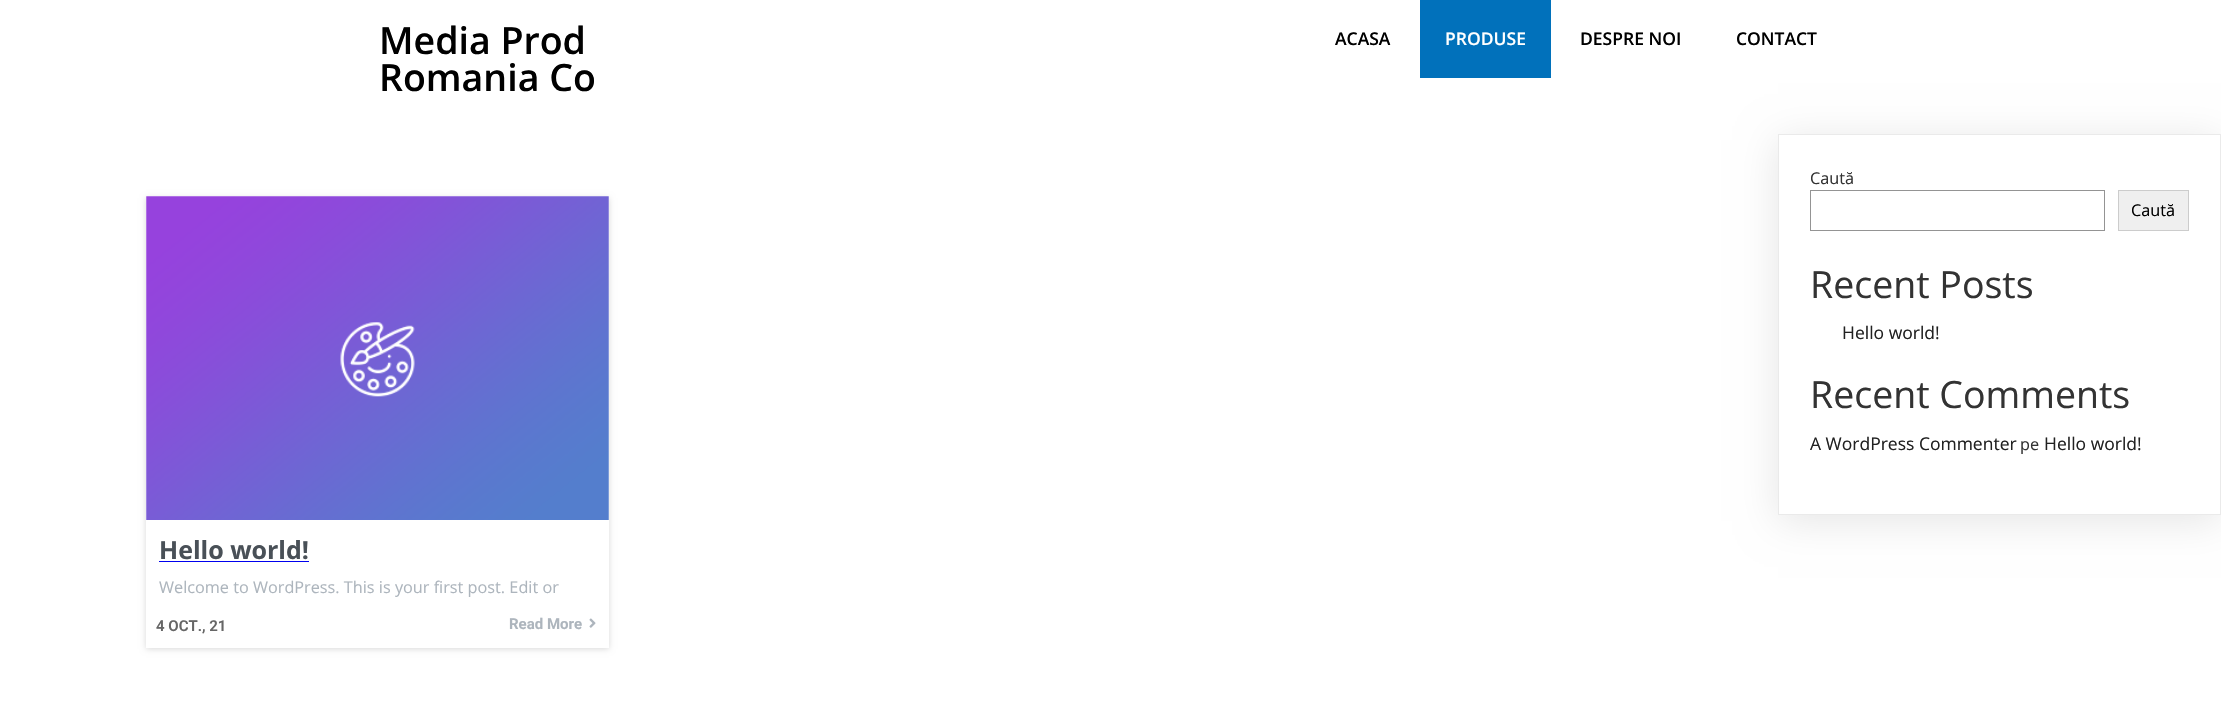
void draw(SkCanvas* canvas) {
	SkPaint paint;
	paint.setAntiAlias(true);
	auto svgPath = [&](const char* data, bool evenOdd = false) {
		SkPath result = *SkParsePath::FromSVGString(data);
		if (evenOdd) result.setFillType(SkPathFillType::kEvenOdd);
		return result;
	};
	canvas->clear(0xffffffff);
	SkFont f1(fontMgr->matchFamilyStyle("Open Sans", SkFontStyle(600, SkFontStyle::kNormal_Width, SkFontStyle::kUpright_Slant)), 37.5);
	f1.setSubpixel(true);
	paint.setColor(0xff000000);
	canvas->drawString("Media Prod", 379, 54, f1, paint);
	canvas->drawString("Romania Co", 379, 91, f1, paint);
	SkFont f2(fontMgr->matchFamilyStyle("Open Sans", SkFontStyle(600, SkFontStyle::kNormal_Width, SkFontStyle::kUpright_Slant)), 17.5);
	f2.setSubpixel(true);
	canvas->drawString("ACASA", 1335, 45, f2, paint);
	paint.setColor(0xff0171bb);
	canvas->drawRect(SkRect::MakeXYWH(1420, 0, 131, 78), paint);
	paint.setColor(0xffffffff);
	canvas->drawString("PRODUSE", 1445, 45, f2, paint);
	paint.setColor(0xff000000);
	canvas->drawString("DESPRE NOI", 1580, 45, f2, paint);
	canvas->drawString("CONTACT", 1736, 45, f2, paint);
	canvas->save();
	canvas->clipPath(svgPath("M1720 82H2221V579H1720ZM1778 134H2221V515H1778Z", true), true);
	paint.setColor(0x1a000000);
	paint.setMaskFilter(SkMaskFilter::MakeBlur(kNormal_SkBlurStyle, 19));
	canvas->drawRect(SkRect::MakeXYWH(1778, 140, 443, 381), paint);
	paint.setMaskFilter(nullptr);
	canvas->restore();
	paint.setStroke(true);
	paint.setStrokeWidth(1);
	paint.setColor(0xffeaeaea);
	canvas->drawRect(SkRect::MakeXYWH(1778.5, 134.5, 442, 380), paint);
	SkFont f3(fontMgr->matchFamilyStyle("Open Sans", SkFontStyle::Normal()), 16.25);
	f3.setSubpixel(true);
	paint.setStroke(false);
	paint.setColor(0xff333333);
	canvas->drawString("Caută", 1810, 184, f3, paint);
	paint.setStroke(true);
	paint.setColor(0xff949494);
	canvas->drawRect(SkRect::MakeXYWH(1810.5, 190.5, 294, 40), paint);
	paint.setStroke(false);
	paint.setColor(0xffefefef);
	canvas->drawRect(SkRect::MakeXYWH(2118.5, 190.5, 70, 40), paint);
	paint.setStroke(true);
	paint.setColor(0xffcccccc);
	canvas->drawRect(SkRect::MakeXYWH(2118.5, 190.5, 70, 40), paint);
	paint.setStroke(false);
	paint.setColor(0xff000000);
	canvas->drawString("Caută", 2131, 216, f3, paint);
	SkFont f4(fontMgr->matchFamilyStyle("Open Sans", SkFontStyle::Normal()), 37.5);
	f4.setSubpixel(true);
	paint.setColor(0xff333333);
	canvas->drawString("Recent Posts", 1810, 298, f4, paint);
	SkFont f5(fontMgr->matchFamilyStyle("Open Sans", SkFontStyle::Normal()), 17.5);
	f5.setSubpixel(true);
	paint.setColor(0xff212121);
	canvas->drawString("Hello world!", 1842, 339, f5, paint);
	paint.setColor(0xff333333);
	canvas->drawString("Recent Comments", 1810, 408, f4, paint);
	paint.setColor(0xff212121);
	canvas->drawString("A WordPress Commenter", 1810, 450, f5, paint);
	paint.setColor(0xff333333);
	canvas->drawString("pe", 2020, 450, f3, paint);
	paint.setColor(0xff212121);
	canvas->drawString("Hello world!", 2044, 450, f5, paint);
	paint.setColor(0x26000000);
	paint.setMaskFilter(SkMaskFilter::MakeBlur(kNormal_SkBlurStyle, 3));
	canvas->drawRect(SkRect::MakeXYWH(146, 198, 463, 451), paint);
	paint.setMaskFilter(nullptr);
	paint.setColor(0xffffffff);
	canvas->drawRect(SkRect::MakeXYWH(146, 196, 463, 452), paint);
	canvas->drawImageRect(SkImages::DeferredFromEncodedData(SkData::MakeFromFileName("img1.png")), SkRect::MakeXYWH(146, 196, 463, 324), SkSamplingOptions());
	SkFont f6(fontMgr->matchFamilyStyle("Open Sans", SkFontStyle::Bold()), 25);
	f6.setSubpixel(true);
	paint.setColor(0xff495057);
	canvas->drawString("Hello world!", 159, 559, f6, paint);
	paint.setColor(0xff0000ee);
	canvas->drawRect(SkRect::MakeXYWH(159, 561, 150, 1), paint);
	paint.setColor(0xffadb5bd);
	canvas->drawString("Welcome to WordPress. This is your first post. Edit or", 159, 593, f3, paint);
	SkFont f7(fontMgr->matchFamilyStyle("Roboto", SkFontStyle(600, SkFontStyle::kNormal_Width, SkFontStyle::kUpright_Slant)), 15);
	f7.setSubpixel(true);
	paint.setColor(0xff666666);
	canvas->drawString("4 OCT., 21", 156, 631, f7, paint);
	SkFont f8(fontMgr->matchFamilyStyle("Roboto", SkFontStyle::Bold()), 15);
	f8.setSubpixel(true);
	paint.setColor(0xffadb5bd);
	canvas->drawString("Read More", 509, 629, f8, paint);
	canvas->drawImageRect(SkImages::DeferredFromEncodedData(SkData::MakeFromFileName("img2.png")), SkRect::MakeXYWH(589, 618, 7, 10), SkSamplingOptions());
}
